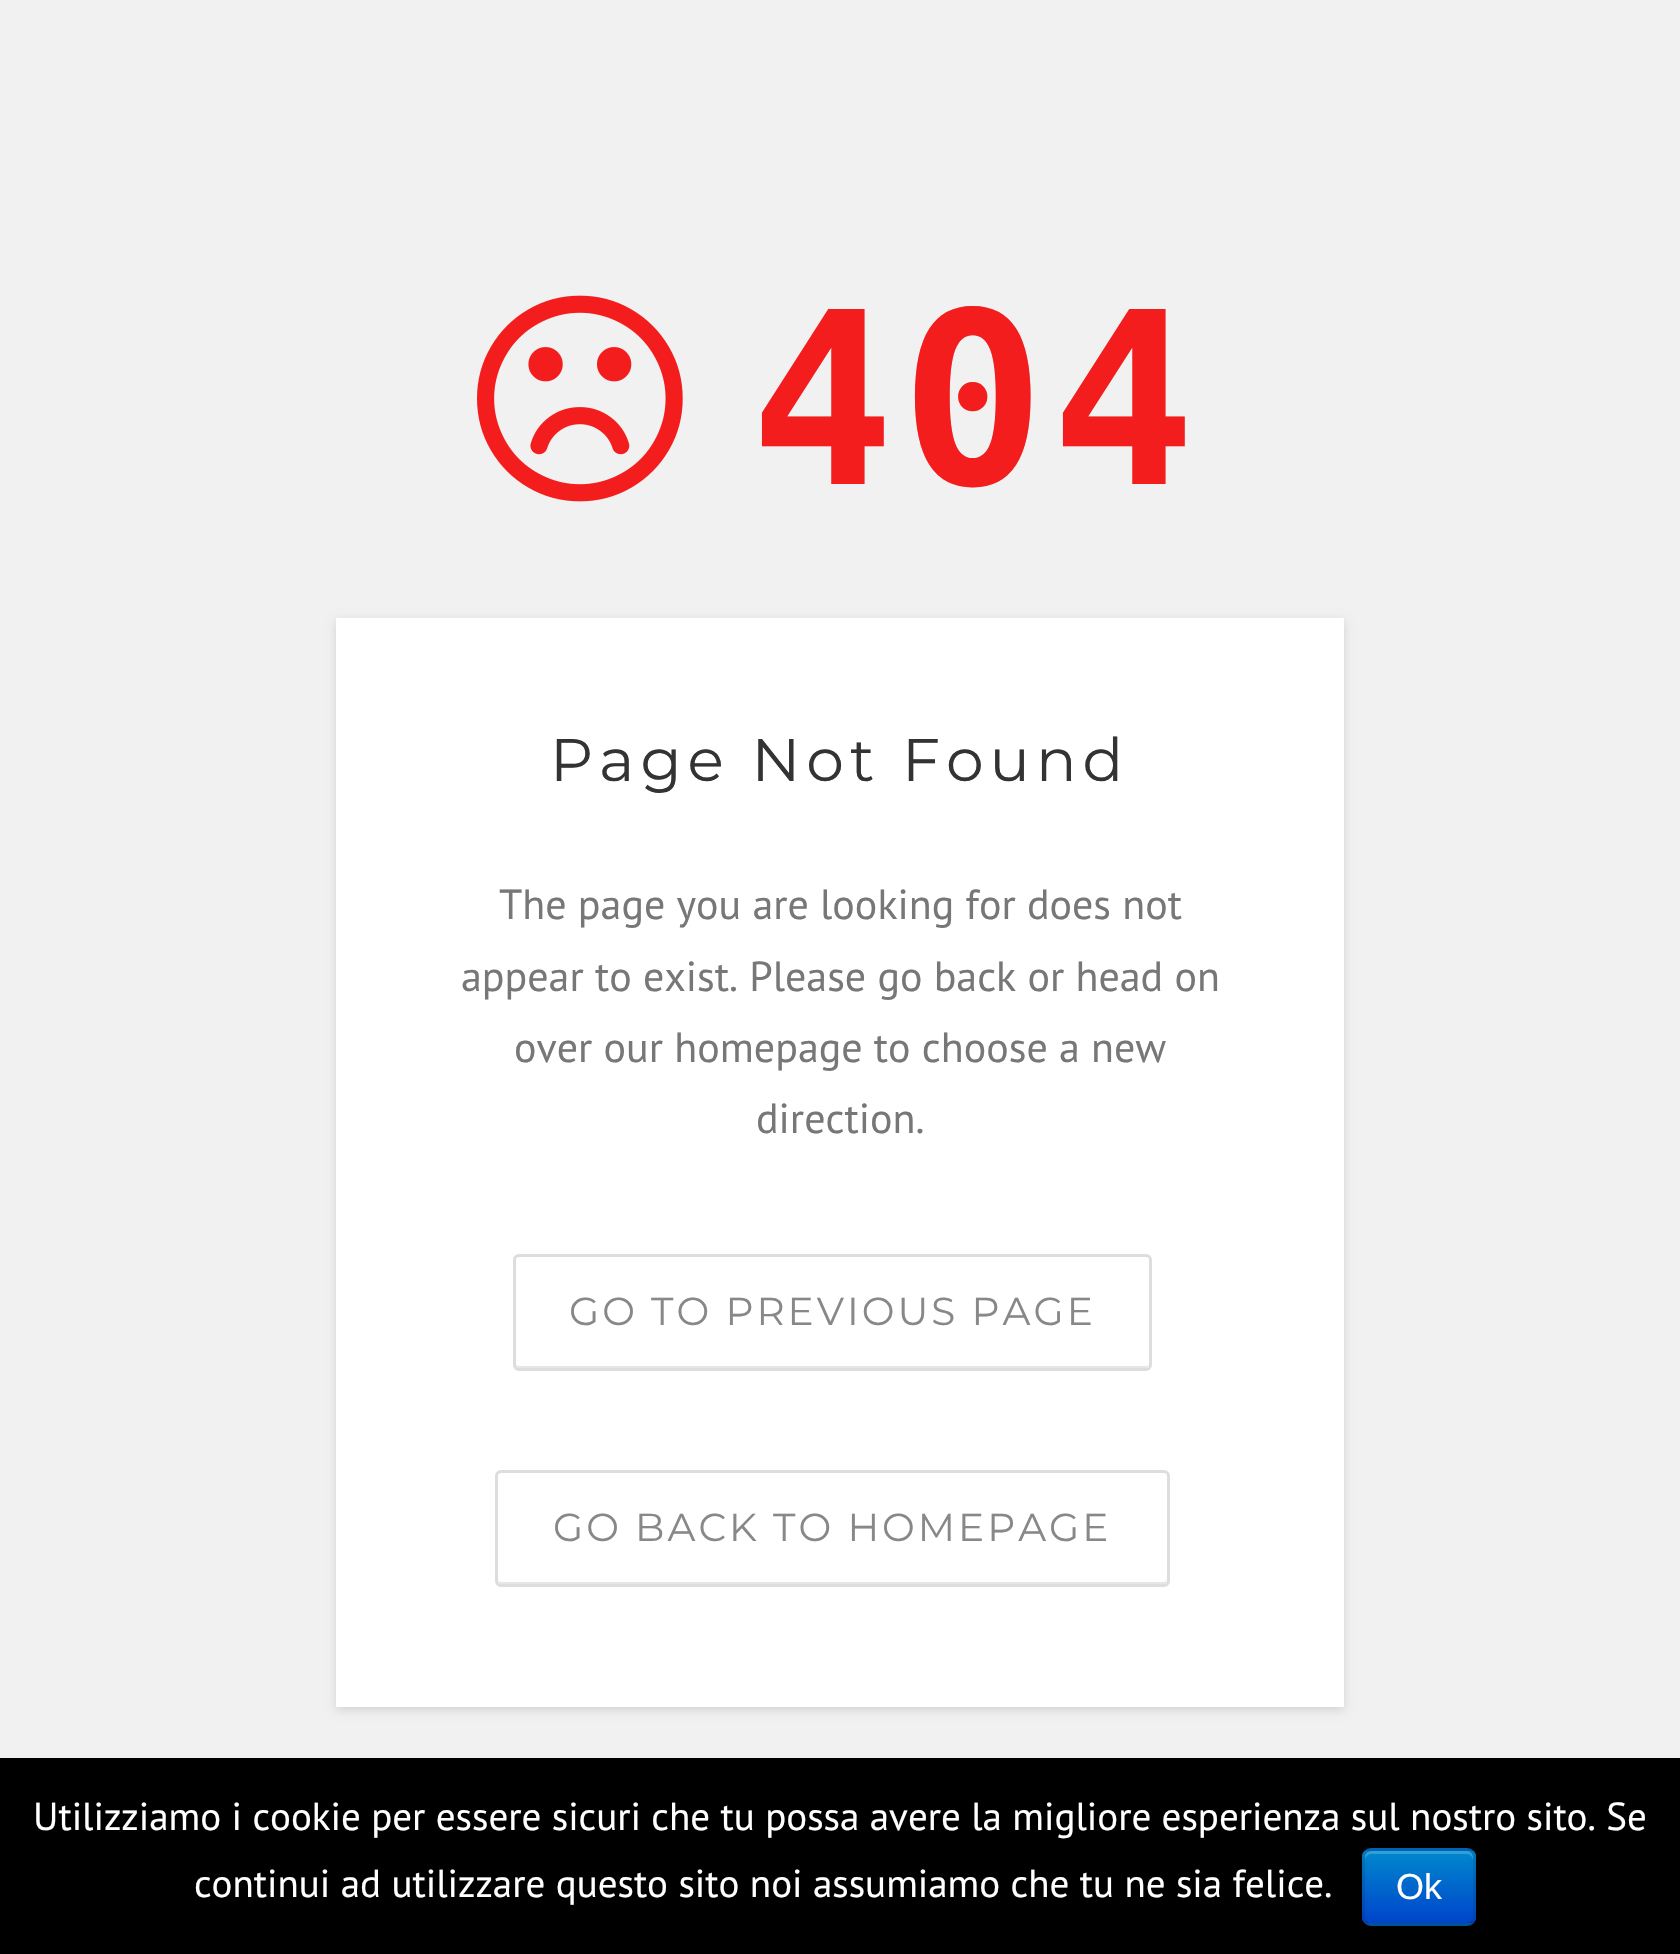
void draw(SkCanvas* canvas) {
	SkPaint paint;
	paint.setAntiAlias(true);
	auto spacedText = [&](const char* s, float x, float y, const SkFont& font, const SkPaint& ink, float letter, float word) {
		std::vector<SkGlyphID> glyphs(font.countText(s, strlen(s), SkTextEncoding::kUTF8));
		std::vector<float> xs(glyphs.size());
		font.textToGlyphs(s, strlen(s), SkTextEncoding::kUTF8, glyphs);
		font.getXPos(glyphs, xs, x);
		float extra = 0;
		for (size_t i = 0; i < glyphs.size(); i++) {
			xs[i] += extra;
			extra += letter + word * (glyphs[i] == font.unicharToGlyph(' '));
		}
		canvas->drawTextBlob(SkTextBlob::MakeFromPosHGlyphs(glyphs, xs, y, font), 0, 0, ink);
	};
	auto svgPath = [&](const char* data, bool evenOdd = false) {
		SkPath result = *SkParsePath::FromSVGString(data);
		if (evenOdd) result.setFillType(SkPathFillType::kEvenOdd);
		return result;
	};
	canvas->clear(0xfff1f1f1);
	canvas->drawImageRect(SkImages::DeferredFromEncodedData(SkData::MakeFromFileName("img1.png")), SkRect::MakeXYWH(477, 295, 206, 207), SkSamplingOptions());
	SkFont f1(fontMgr->matchFamilyStyle("DejaVu Sans Mono", SkFontStyle::Bold()), 240);
	f1.setSubpixel(true);
	paint.setColor(0xfff41d1d);
	spacedText("404", 750, 484, f1, paint, 6, 0);
	paint.setColor(0x21000000);
	paint.setMaskFilter(SkMaskFilter::MakeBlur(kNormal_SkBlurStyle, 4.5));
	canvas->drawRect(SkRect::MakeXYWH(336, 621, 1008, 1089), paint);
	paint.setMaskFilter(nullptr);
	paint.setColor(0xffffffff);
	canvas->drawRect(SkRect::MakeXYWH(336, 618, 1008, 1089), paint);
	SkFont f2(fontMgr->matchFamilyStyle("Montserrat", SkFontStyle::Normal()), 60);
	f2.setSubpixel(true);
	paint.setColor(0xff333333);
	spacedText("Page Not Found", 550, 781, f2, paint, 6, 0);
	SkFont f3(fontMgr->matchFamilyStyle("PT Sans", SkFontStyle::Normal()), 42);
	f3.setSubpixel(true);
	paint.setColor(0xff777777);
	canvas->drawString("The page you are looking for does not", 499, 919, f3, paint);
	canvas->drawString("appear to exist. Please go back or head on", 461, 991, f3, paint);
	canvas->drawString("over our homepage to choose a new", 514, 1062, f3, paint);
	canvas->drawString("direction.", 756, 1133, f3, paint);
	paint.setColor(0xffe6e6e6);
	canvas->drawPath(svgPath("M516 1363C516 1365 516 1368 519 1368H1146L1148 1367L1149 1363C1149 1365 1148 1366 1146 1366H519C517 1366 516 1365 516 1363Z"), paint);
	paint.setStroke(true);
	paint.setStrokeWidth(3);
	paint.setColor(0xffdddddd);
	canvas->drawRoundRect(SkRect::MakeXYWH(514.5, 1255.5, 636, 114), 4.5, 4.5, paint);
	SkFont f4(fontMgr->matchFamilyStyle("Montserrat", SkFontStyle::Normal()), 39);
	f4.setSubpixel(true);
	paint.setStroke(false);
	paint.setColor(0xff888888);
	spacedText("GO TO PREVIOUS PAGE", 569, 1325, f4, paint, 3, 0);
	paint.setColor(0xffe6e6e6);
	canvas->drawPath(svgPath("M498 1579C498 1581 498 1584 501 1584H1164C1167 1584 1167 1581 1167 1579C1167 1581 1166 1582 1164 1582H501C499 1582 498 1581 498 1579Z"), paint);
	paint.setStroke(true);
	paint.setColor(0xffdddddd);
	canvas->drawRoundRect(SkRect::MakeXYWH(496.5, 1471.5, 672, 114), 4.5, 4.5, paint);
	paint.setStroke(false);
	paint.setColor(0xff888888);
	spacedText("GO BACK TO HOMEPAGE", 553, 1541, f4, paint, 3, 0);
	paint.setColor(0xff000000);
	canvas->drawRect(SkRect::MakeXYWH(0, 1758, 1680, 196), paint);
	SkFont f5(fontMgr->matchFamilyStyle("PT Sans", SkFontStyle::Normal()), 39);
	f5.setSubpixel(true);
	paint.setColor(0xffffffff);
	canvas->drawString("Utilizziamo i cookie per essere sicuri che tu possa avere la migliore esperienza sul nostro sito. Se", 33, 1830, f5, paint);
	canvas->drawString("continui ad utilizzare questo sito noi assumiamo che tu ne sia felice.", 194, 1897, f5, paint);
	paint.setColor(0xff006dcc);
	canvas->drawRoundRect(SkRect::MakeXYWH(1362, 1848, 114, 78), 9, 9, paint);
	canvas->save();
	canvas->clipPath(svgPath("M1371 1848H1467C1472 1848 1476 1852 1476 1857V1917C1476 1922 1472 1926 1467 1926H1371C1366 1926 1362 1922 1362 1917V1857C1362 1852 1366 1848 1371 1848Z"), true);
	{
		const SkColor colors[] = {0xff0088cc, 0xff0044cc};
		const float stops[] = {0, 1};
		const SkPoint ends[] = {{1419, 1851}, {1419, 1923}};
		paint.setShader(SkGradientShader::MakeLinear(ends, colors, stops, 2, SkTileMode::kClamp));
		paint.setAlpha(255);
	}
	canvas->drawRect(SkRect::MakeXYWH(1362, 1851, 114, 72), paint);
	canvas->restore();
	paint.setShader(nullptr);
	paint.setColor(0x33ffffff);
	canvas->drawPath(svgPath("M1371 1854H1467C1470 1854 1473 1857 1473 1860V1857C1473 1854 1470 1851 1467 1851H1371C1368 1851 1365 1854 1365 1857V1860C1365 1857 1368 1854 1371 1854Z"), paint);
	paint.setStroke(true);
	paint.setColor(0x40000000);
	canvas->drawPath(svgPath("M1472.5 1922.5C1471 1923.5 1469 1924.5 1467 1924.5H1371C1369 1924.5 1367 1923.5 1365.5 1922.5"), paint);
	paint.setColor(0x1a000000);
	canvas->drawPath(svgPath("M1365.5 1922.5C1364.5 1921 1363.5 1919 1363.5 1917V1857C1363.5 1855 1364.5 1853 1365.5 1851.5C1367 1850.5 1369 1849.5 1371 1849.5H1467C1469 1849.5 1471 1850.5 1472.5 1851.5C1473.5 1853 1474.5 1855 1474.5 1857V1917C1474.5 1919 1473.5 1921 1472.5 1922.5"), paint);
	SkFont f6(fontMgr->matchFamilyStyle("Liberation Sans", SkFontStyle::Normal()), 36);
	f6.setSubpixel(true);
	paint.setStroke(false);
	paint.setColor(0xffffffff);
	canvas->drawString("Ok", 1396, 1899, f6, paint);
}
